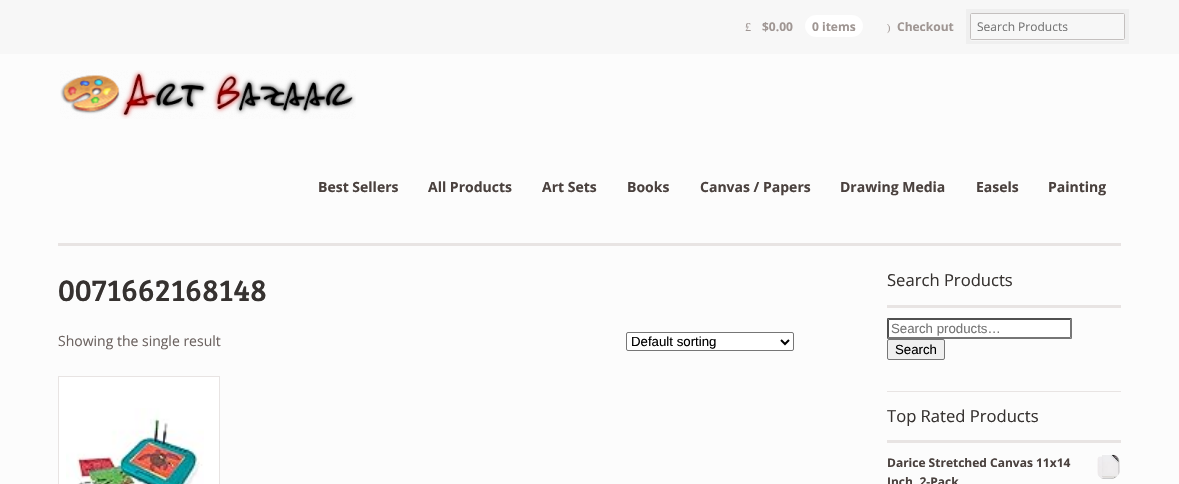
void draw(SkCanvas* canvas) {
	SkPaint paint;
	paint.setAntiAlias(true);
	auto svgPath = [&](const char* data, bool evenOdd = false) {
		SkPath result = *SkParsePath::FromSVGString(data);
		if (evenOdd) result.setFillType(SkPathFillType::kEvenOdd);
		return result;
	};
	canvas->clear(0xfffcfcfc);
	paint.setColor(0xfff7f7f7);
	canvas->drawRect(SkRect::MakeXYWH(0, 0, 1179, 54), paint);
	SkFont f1(fontMgr->matchFamilyStyle("Liberation Serif", SkFontStyle::Normal()), 12);
	f1.setSubpixel(true);
	paint.setColor(0xff9f9693);
	canvas->drawString("£", 745, 31, f1, paint);
	SkFont f2(fontMgr->matchFamilyStyle("Open Sans", SkFontStyle::Bold()), 12);
	f2.setSubpixel(true);
	canvas->drawString("$0.00", 762, 31, f2, paint);
	paint.setColor(0xffffffff);
	canvas->drawRoundRect(SkRect::MakeXYWH(805, 15, 58, 22), 11, 11, paint);
	paint.setColor(0xff9f9693);
	canvas->drawString("0 items", 812, 31, f2, paint);
	SkFont f3(fontMgr->matchFamilyStyle("Liberation Serif", SkFontStyle::Normal()), 10);
	f3.setSubpixel(true);
	canvas->drawString(")", 887, 31, f3, paint);
	canvas->drawString("Checkout", 897, 31, f2, paint);
	paint.setColor(0xffffffff);
	canvas->drawPath(svgPath("M970 39C970 40 970 41 972 41H1124C1125 41 1125 40 1125 39C1125 39 1124 40 1124 40H971C971 40 970 39 970 39Z"), paint);
	paint.setStroke(true);
	paint.setStrokeWidth(4);
	paint.setColor(0x08000000);
	canvas->drawRect(SkRect::MakeXYWH(968, 11, 159, 31), paint);
	paint.setStrokeWidth(1);
	paint.setColor(0xffc4c0bf);
	canvas->drawRoundRect(SkRect::MakeXYWH(970.5, 13.5, 154, 26), 1, 1, paint);
	SkFont f4(fontMgr->matchFamilyStyle("Open Sans", SkFontStyle::Normal()), 12);
	f4.setSubpixel(true);
	paint.setStroke(false);
	paint.setColor(0xff757575);
	canvas->drawString("Search Products", 977, 31, f4, paint);
	paint.setColor(0xffe8e4e3);
	canvas->drawRect(SkRect::MakeXYWH(58, 243, 1063, 3), paint);
	canvas->drawImageRect(SkImages::DeferredFromEncodedData(SkData::MakeFromFileName("img1.png")), SkRect::MakeXYWH(60, 70, 296, 49), SkSamplingOptions());
	SkFont f5(fontMgr->matchFamilyStyle("Open Sans", SkFontStyle::Bold()), 14);
	f5.setSubpixel(true);
	paint.setColor(0xff4a413e);
	canvas->drawString("Best Sellers", 318, 192, f5, paint);
	canvas->drawString("All Products", 428, 192, f5, paint);
	canvas->drawString("Art Sets", 542, 192, f5, paint);
	canvas->drawString("Books", 627, 192, f5, paint);
	canvas->drawString("Canvas / Papers", 700, 192, f5, paint);
	canvas->drawString("Drawing Media", 840, 192, f5, paint);
	canvas->drawString("Easels", 976, 192, f5, paint);
	canvas->drawString("Painting", 1048, 192, f5, paint);
	SkFont f6(fontMgr->matchFamilyStyle("Bree Serif", SkFontStyle::Normal()), 31.5);
	f6.setSubpixel(true);
	paint.setColor(0xff363230);
	canvas->drawString("0071662168148", 58, 301, f6, paint);
	SkFont f7(fontMgr->matchFamilyStyle("Open Sans", SkFontStyle::Normal()), 14);
	f7.setSubpixel(true);
	paint.setColor(0xff6c6360);
	canvas->drawString("Showing the single result", 58, 346, f7, paint);
	paint.setColor(0xffffffff);
	canvas->drawRoundRect(SkRect::MakeXYWH(626.5, 332.5, 167, 18), 1.5, 1.5, paint);
	paint.setStroke(true);
	paint.setColor(0xff767676);
	canvas->drawRoundRect(SkRect::MakeXYWH(626.5, 332.5, 167, 18), 1.5, 1.5, paint);
	paint.setStrokeWidth(2);
	paint.setColor(0xff000000);
	canvas->drawPath(svgPath("M781 340L785 344L789 340"), paint);
	SkFont f8(fontMgr->matchFamilyStyle("Liberation Sans", SkFontStyle::Normal()), 13.25);
	f8.setSubpixel(true);
	paint.setStroke(false);
	canvas->drawString("Default sorting", 631, 346, f8, paint);
	paint.setColor(0xffffffff);
	canvas->drawRect(SkRect::MakeXYWH(58.5, 376.5, 161, 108), paint);
	paint.setStroke(true);
	paint.setStrokeWidth(1);
	paint.setColor(0xffe8e4e3);
	canvas->drawRect(SkRect::MakeXYWH(58.5, 376.5, 161, 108), paint);
	canvas->drawImageRect(SkImages::DeferredFromEncodedData(SkData::MakeFromFileName("img2.png")), SkRect::MakeXYWH(66, 408, 138, 76), SkSamplingOptions());
	paint.setStroke(false);
	canvas->drawRect(SkRect::MakeXYWH(887, 305, 234, 3), paint);
	SkFont f9(fontMgr->matchFamilyStyle("Open Sans", SkFontStyle::Normal()), 16.6);
	f9.setSubpixel(true);
	paint.setColor(0xff363230);
	canvas->drawString("Search Products", 887, 286, f9, paint);
	paint.setColor(0xffffffff);
	canvas->drawRect(SkRect::MakeXYWH(887, 318, 185, 21), paint);
	paint.setColor(0xff4f4f4f);
	canvas->drawPath(svgPath("M887 318H1072L1070 320H889Z"), paint);
	paint.setColor(0xff767676);
	canvas->drawPath(svgPath("M1072 318V339L1070 337V320Z"), paint);
	canvas->drawPath(svgPath("M1072 339H887L889 337H1070Z"), paint);
	paint.setColor(0xff4f4f4f);
	canvas->drawPath(svgPath("M887 339V318L889 320V337Z"), paint);
	paint.setColor(0xff757575);
	canvas->drawString("Search products…", 891, 333, f8, paint);
	paint.setColor(0xffefefef);
	canvas->drawRoundRect(SkRect::MakeXYWH(887.5, 339.5, 57, 20), 1.5, 1.5, paint);
	paint.setStroke(true);
	paint.setColor(0xff767676);
	canvas->drawRoundRect(SkRect::MakeXYWH(887.5, 339.5, 57, 20), 1.5, 1.5, paint);
	paint.setStroke(false);
	paint.setColor(0xff000000);
	canvas->drawString("Search", 895, 354, f8, paint);
	paint.setColor(0xffe8e4e3);
	canvas->drawRect(SkRect::MakeXYWH(887, 391, 234, 1), paint);
	canvas->drawRect(SkRect::MakeXYWH(887, 440, 234, 3), paint);
	paint.setColor(0xff363230);
	canvas->drawString("Top Rated Products", 887, 422, f9, paint);
	paint.setColor(0xff4a413e);
	canvas->drawString("Darice Stretched Canvas 11x14", 887, 467, f2, paint);
	canvas->drawImageRect(SkImages::DeferredFromEncodedData(SkData::MakeFromFileName("img3.png")), SkRect::MakeXYWH(1097, 454, 23, 25), SkSamplingOptions());
	canvas->drawString("Inch, 2-Pack", 887, 486, f2, paint);
}
